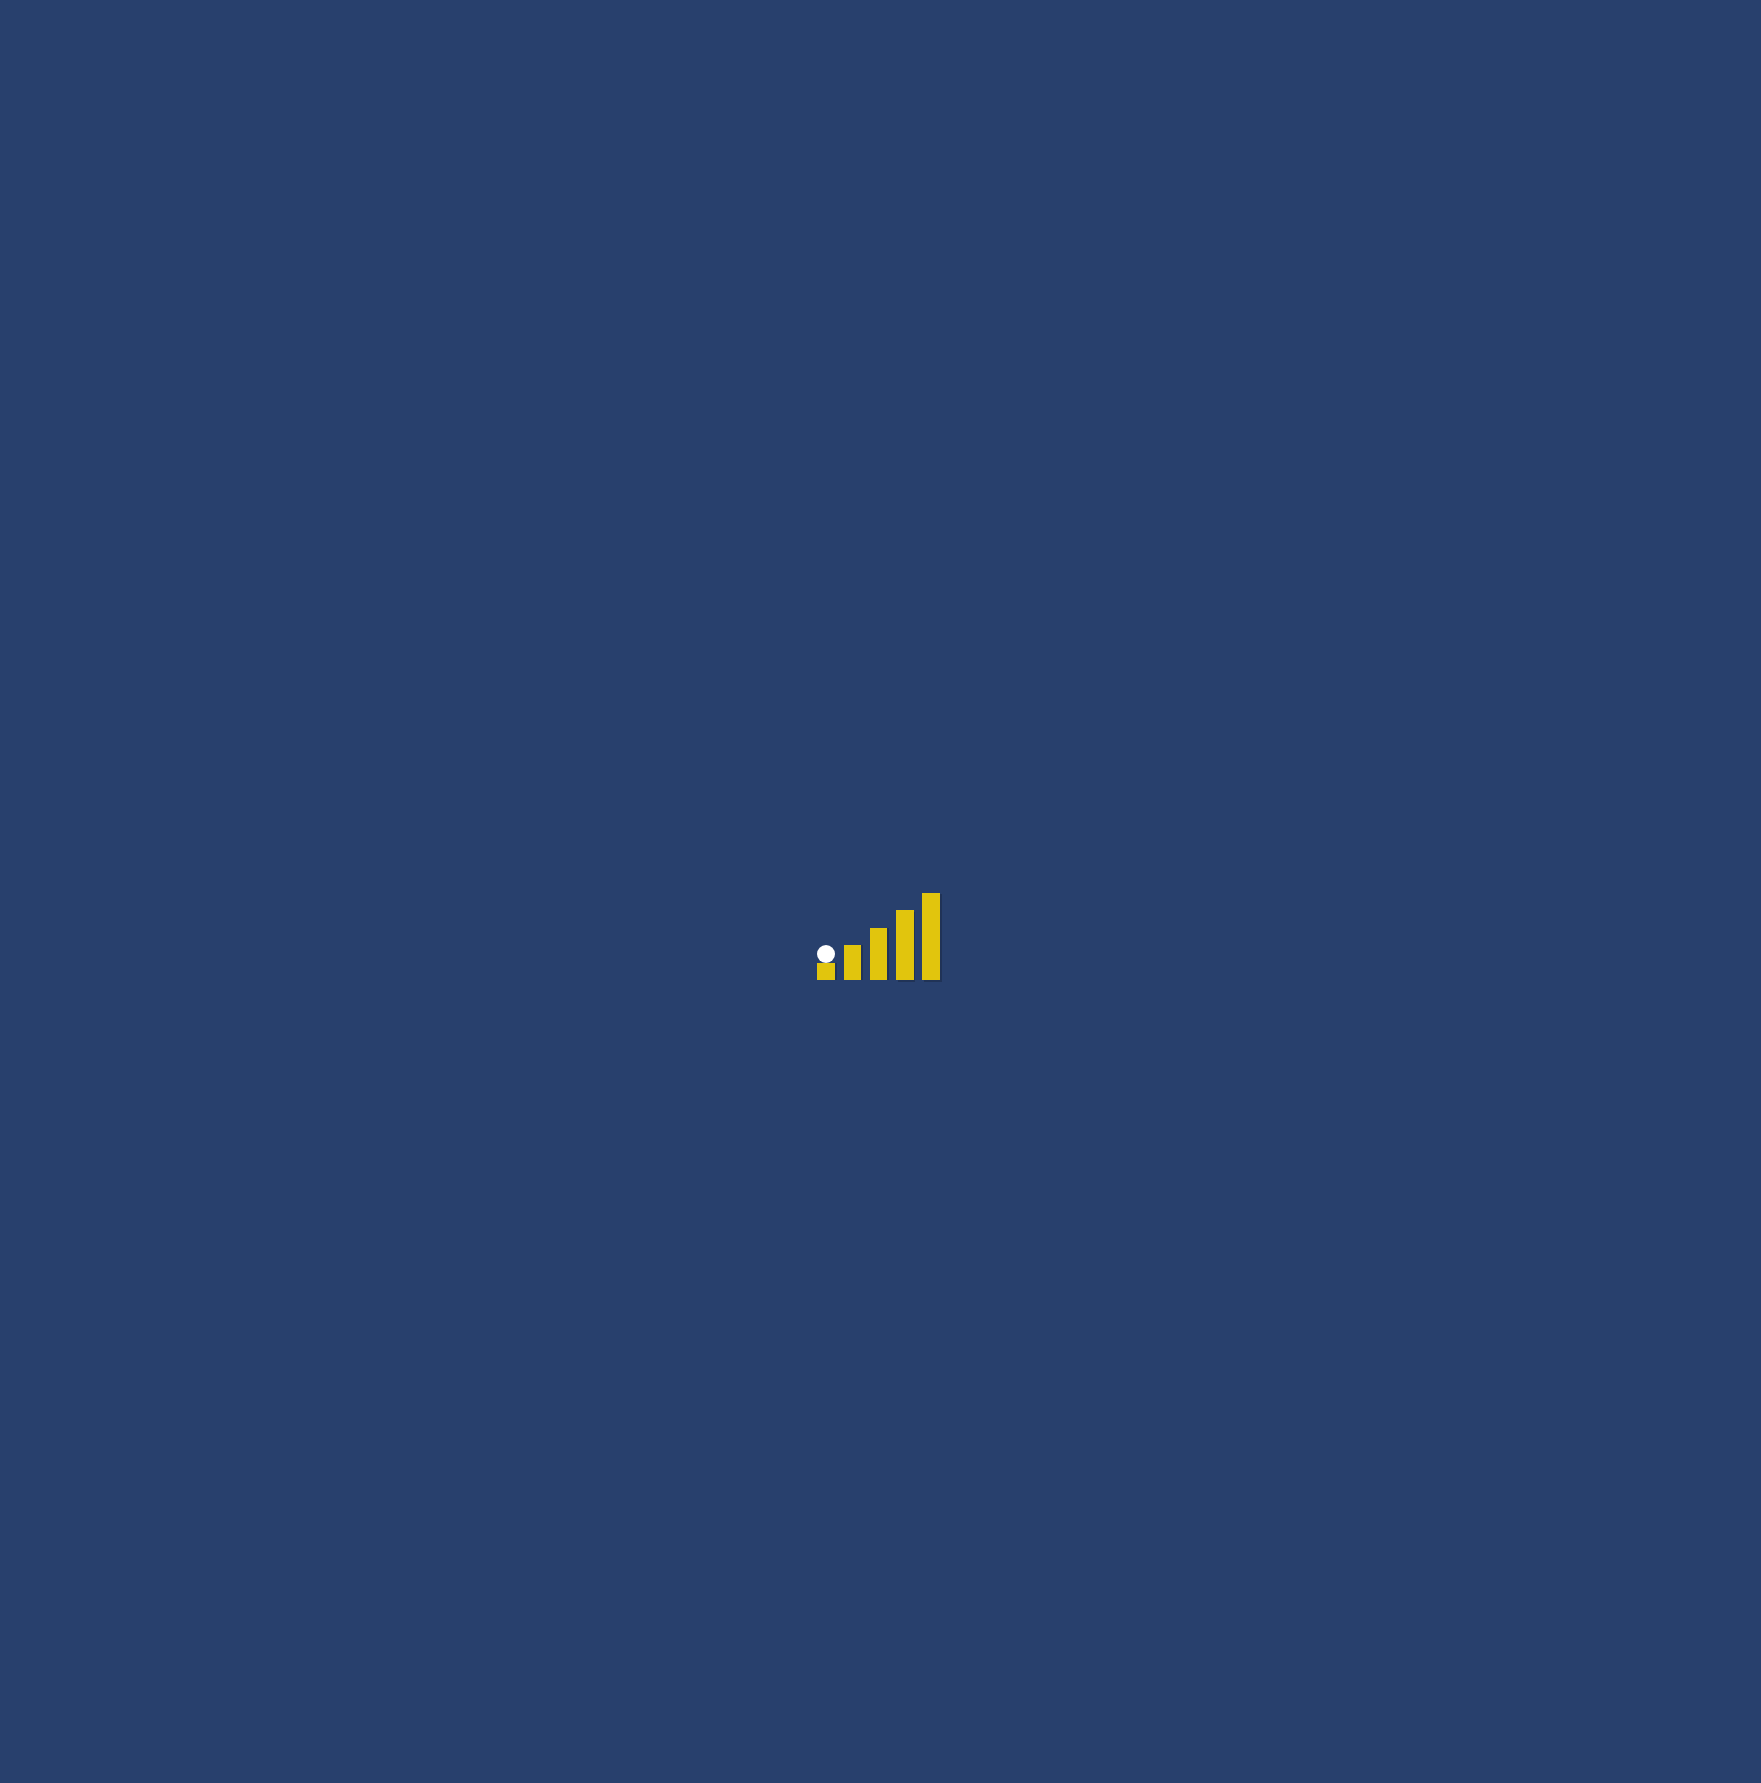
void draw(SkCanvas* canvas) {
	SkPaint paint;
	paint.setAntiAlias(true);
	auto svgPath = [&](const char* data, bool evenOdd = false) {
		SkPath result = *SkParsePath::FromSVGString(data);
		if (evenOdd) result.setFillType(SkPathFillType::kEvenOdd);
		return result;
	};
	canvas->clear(0xff28406d);
	paint.setColor(0xffffffff);
	canvas->drawCircle(826, 954, 9, paint);
	paint.setColor(0xff203357);
	canvas->drawPath(svgPath("M845 979.5V980H863V945H860V979.5Z"), paint);
	paint.setColor(0xffe1c50d);
	canvas->drawRect(SkRect::MakeXYWH(844, 945, 17, 35), paint);
	paint.setColor(0xff203357);
	canvas->drawPath(svgPath("M872 980H889V928H886V980Z"), paint);
	paint.setColor(0xffe1c50d);
	canvas->drawRect(SkRect::MakeXYWH(870, 928, 17, 52), paint);
	paint.setColor(0xff203357);
	canvas->drawPath(svgPath("M898 980V982H915V912H913V980Z"), paint);
	paint.setColor(0xffe1c50d);
	canvas->drawRect(SkRect::MakeXYWH(896, 910, 18, 70), paint);
	paint.setColor(0xff203357);
	canvas->drawPath(svgPath("M924 980V982H942V894H939V980Z"), paint);
	paint.setColor(0xffe1c50d);
	canvas->drawRect(SkRect::MakeXYWH(922, 893, 18, 87), paint);
	paint.setColor(0xff203357);
	canvas->drawPath(svgPath("M819 979.5V980H837V963H834V979.5Z"), paint);
	paint.setColor(0xffe1c50d);
	canvas->drawRect(SkRect::MakeXYWH(817, 963, 18, 17), paint);
}
